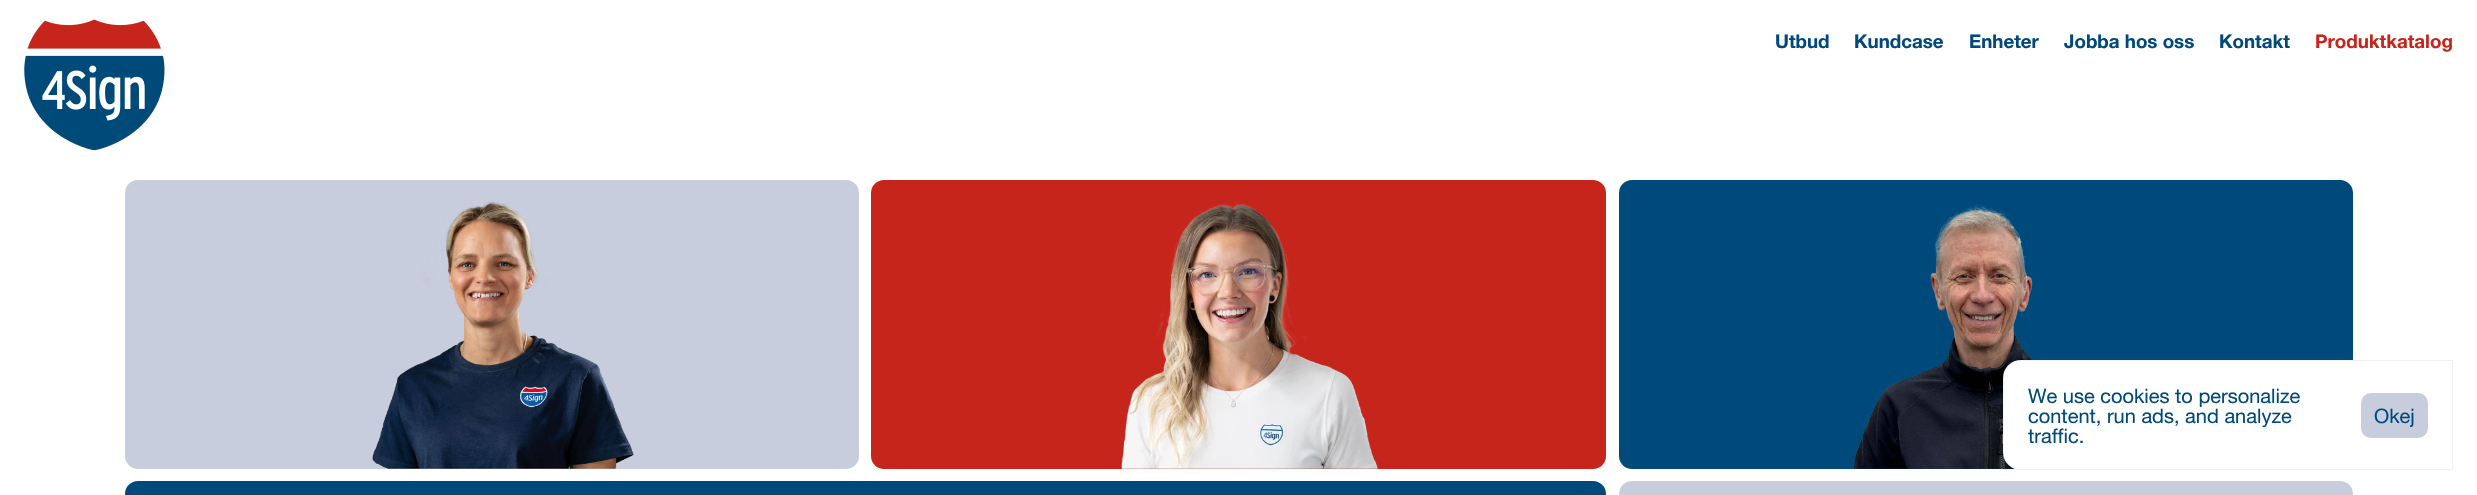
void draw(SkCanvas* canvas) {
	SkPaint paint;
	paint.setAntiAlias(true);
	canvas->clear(0xffffffff);
	canvas->drawImageRect(SkImages::DeferredFromEncodedData(SkData::MakeFromFileName("img1.png")), SkRect::MakeXYWH(24, 19, 141, 132), SkSamplingOptions());
	SkFont f1(fontMgr->matchFamilyStyle("Helvetica Neue", SkFontStyle::Bold()), 18.75);
	f1.setSubpixel(true);
	paint.setColor(0xff004a7b);
	canvas->drawString("Utbud", 1775, 48, f1, paint);
	canvas->drawString("Kundcase", 1854, 48, f1, paint);
	canvas->drawString("Enheter", 1969, 48, f1, paint);
	canvas->drawString("Jobba hos oss", 2064, 48, f1, paint);
	canvas->drawString("Kontakt", 2219, 48, f1, paint);
	paint.setColor(0xffc6251b);
	canvas->drawString("Produktkatalog", 2315, 48, f1, paint);
	paint.setColor(0xffc8cddd);
	canvas->drawRoundRect(SkRect::MakeXYWH(125, 180, 734, 289), 13, 13, paint);
	canvas->drawImageRect(SkImages::DeferredFromEncodedData(SkData::MakeFromFileName("img2.png")), SkRect::MakeXYWH(372, 201, 262, 268), SkSamplingOptions());
	paint.setColor(0xffc6251b);
	canvas->drawRoundRect(SkRect::MakeXYWH(871, 180, 735, 289), 13, 13, paint);
	canvas->drawImageRect(SkImages::DeferredFromEncodedData(SkData::MakeFromFileName("img3.png")), SkRect::MakeXYWH(1121, 202, 257, 267), SkSamplingOptions());
	paint.setColor(0xff004a7b);
	canvas->drawRoundRect(SkRect::MakeXYWH(1619, 180, 734, 289), 13, 13, paint);
	canvas->drawImageRect(SkImages::DeferredFromEncodedData(SkData::MakeFromFileName("img4.png")), SkRect::MakeXYWH(1854, 204, 179, 265), SkSamplingOptions());
	canvas->drawRoundRect(SkRect::MakeXYWH(125, 481, 1481, 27), 13, 13, paint);
	paint.setColor(0xffc8cddd);
	canvas->drawRoundRect(SkRect::MakeXYWH(1619, 481, 734, 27), 13, 13, paint);
	paint.setColor(0xffffffff);
	canvas->drawRoundRect(SkRect::MakeXYWH(2003, 360, 450, 110), 18, 18, paint);
	paint.setStroke(true);
	paint.setStrokeWidth(1);
	paint.setColor(0x0d000000);
	canvas->drawRect(SkRect::MakeXYWH(2003.5, 360.5, 449, 109), paint);
	SkFont f2(fontMgr->matchFamilyStyle("Helvetica Neue", SkFontStyle::Normal()), 20);
	f2.setSubpixel(true);
	paint.setStroke(false);
	paint.setColor(0xff004a7b);
	canvas->drawString("We use cookies to personalize", 2028, 403, f2, paint);
	canvas->drawString("content, run ads, and analyze", 2028, 423, f2, paint);
	canvas->drawString("traffic.", 2028, 443, f2, paint);
	paint.setColor(0xffc8cddd);
	canvas->drawRoundRect(SkRect::MakeXYWH(2361, 393, 67, 45), 10, 10, paint);
	paint.setColor(0xff004a7b);
	canvas->drawString("Okej", 2374, 423, f2, paint);
}
